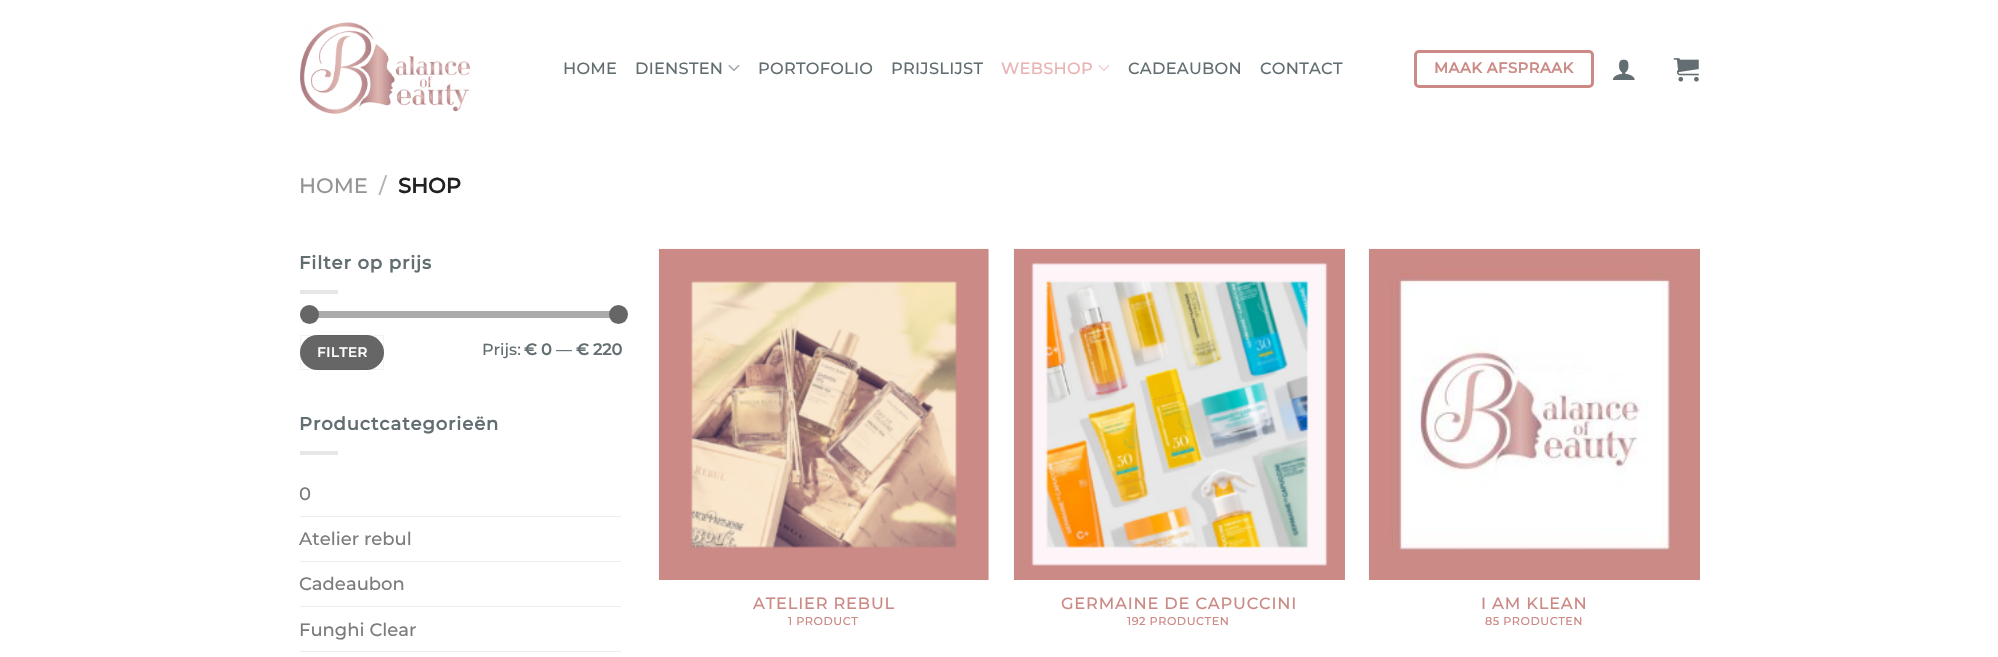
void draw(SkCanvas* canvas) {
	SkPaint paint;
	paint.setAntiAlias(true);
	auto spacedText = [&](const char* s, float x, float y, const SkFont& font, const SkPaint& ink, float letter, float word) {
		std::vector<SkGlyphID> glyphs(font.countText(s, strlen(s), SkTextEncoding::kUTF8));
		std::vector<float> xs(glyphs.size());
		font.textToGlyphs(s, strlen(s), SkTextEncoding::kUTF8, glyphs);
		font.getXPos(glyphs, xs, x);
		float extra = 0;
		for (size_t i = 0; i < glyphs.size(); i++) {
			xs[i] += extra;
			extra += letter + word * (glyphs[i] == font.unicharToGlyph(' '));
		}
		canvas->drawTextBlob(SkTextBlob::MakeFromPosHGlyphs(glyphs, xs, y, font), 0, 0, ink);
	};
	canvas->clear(0xffffffff);
	canvas->drawImageRect(SkImages::DeferredFromEncodedData(SkData::MakeFromFileName("img1.png")), SkRect::MakeXYWH(300, 22, 170, 92), SkSamplingOptions());
	SkFont f1(fontMgr->matchFamilyStyle("Montserrat", SkFontStyle(500, SkFontStyle::kNormal_Width, SkFontStyle::kUpright_Slant)), 16.25);
	f1.setSubpixel(true);
	paint.setColor(0xff636e72);
	spacedText("HOME", 563, 74, f1, paint, 0.25, 0);
	spacedText("DIENSTEN", 635, 74, f1, paint, 0.25, 0);
	canvas->drawImageRect(SkImages::DeferredFromEncodedData(SkData::MakeFromFileName("img2.png")), SkRect::MakeXYWH(728, 64, 12, 8), SkSamplingOptions());
	spacedText("PORTOFOLIO", 758, 74, f1, paint, 0.25, 0);
	spacedText("PRIJSLIJST", 891, 74, f1, paint, 0.25, 0);
	paint.setColor(0xffe8b4b4);
	spacedText("WEBSHOP", 1001, 74, f1, paint, 0.25, 0);
	canvas->drawImageRect(SkImages::DeferredFromEncodedData(SkData::MakeFromFileName("img3.png")), SkRect::MakeXYWH(1098, 64, 12, 8), SkSamplingOptions());
	paint.setColor(0xff636e72);
	spacedText("CADEAUBON", 1128, 74, f1, paint, 0.25, 0);
	spacedText("CONTACT", 1260, 74, f1, paint, 0.25, 0);
	paint.setStroke(true);
	paint.setStrokeWidth(3);
	paint.setColor(0xffcb8a85);
	canvas->drawRoundRect(SkRect::MakeXYWH(1415.5, 51.5, 177, 35), 3.5, 3.5, paint);
	SkFont f2(fontMgr->matchFamilyStyle("Montserrat", SkFontStyle::Bold()), 14.75);
	f2.setSubpixel(true);
	paint.setStroke(false);
	spacedText("MAAK AFSPRAAK", 1434, 73, f2, paint, 0.5, 0);
	canvas->drawImageRect(SkImages::DeferredFromEncodedData(SkData::MakeFromFileName("img4.png")), SkRect::MakeXYWH(1612, 59, 23, 21), SkSamplingOptions());
	canvas->drawImageRect(SkImages::DeferredFromEncodedData(SkData::MakeFromFileName("img5.png")), SkRect::MakeXYWH(1673, 58, 26, 24), SkSamplingOptions());
	SkFont f3(fontMgr->matchFamilyStyle("Montserrat", SkFontStyle(500, SkFontStyle::kNormal_Width, SkFontStyle::kUpright_Slant)), 21);
	f3.setSubpixel(true);
	paint.setColor(0xff949494);
	canvas->drawString("HOME", 299, 193, f3, paint);
	paint.setColor(0xffb2b2b2);
	canvas->drawString("/", 379, 193, f3, paint);
	SkFont f4(fontMgr->matchFamilyStyle("Montserrat", SkFontStyle::Bold()), 21);
	f4.setSubpixel(true);
	paint.setColor(0xff222222);
	canvas->drawString("SHOP", 398, 193, f4, paint);
	SkFont f5(fontMgr->matchFamilyStyle("Montserrat", SkFontStyle::Bold()), 18);
	f5.setSubpixel(true);
	paint.setColor(0xff636e72);
	spacedText("Filter op prijs", 299, 269, f5, paint, 0.9, 0);
	paint.setColor(0xffe6e6e6);
	canvas->drawRect(SkRect::MakeXYWH(300, 290, 38, 4), paint);
	paint.setColor(0xfff1f1f1);
	canvas->drawRoundRect(SkRect::MakeXYWH(300, 311, 321, 7), 3.5, 3.5, paint);
	paint.setColor(0x80666666);
	canvas->drawRoundRect(SkRect::MakeXYWH(300, 311, 321, 7), 3.5, 3.5, paint);
	paint.setColor(0xff666666);
	canvas->drawCircle(309.5, 314.5, 9.5, paint);
	canvas->drawCircle(618.5, 314.5, 9.5, paint);
	canvas->drawRoundRect(SkRect::MakeXYWH(300, 335, 84, 35), 17.5, 17.5, paint);
	paint.setStroke(true);
	paint.setStrokeWidth(1);
	paint.setColor(0x0d000000);
	canvas->drawRect(SkRect::MakeXYWH(300.5, 335.5, 83, 34), paint);
	SkFont f6(fontMgr->matchFamilyStyle("Montserrat", SkFontStyle::Bold()), 13.5);
	f6.setSubpixel(true);
	paint.setStroke(false);
	paint.setColor(0xffffffff);
	spacedText("FILTER", 317, 357, f6, paint, 0.5, 0);
	SkFont f7(fontMgr->matchFamilyStyle("Montserrat", SkFontStyle(500, SkFontStyle::kNormal_Width, SkFontStyle::kUpright_Slant)), 16);
	f7.setSubpixel(true);
	paint.setColor(0xff636e72);
	canvas->drawString("Prijs:", 482, 355, f7, paint);
	SkFont f8(fontMgr->matchFamilyStyle("Montserrat", SkFontStyle::Bold()), 16);
	f8.setSubpixel(true);
	canvas->drawString("€ 0", 524, 355, f8, paint);
	canvas->drawString("—", 556, 355, f7, paint);
	canvas->drawString("€ 220", 576, 355, f8, paint);
	spacedText("Productcategorieën", 299, 430, f5, paint, 0.9, 0);
	paint.setColor(0xffe6e6e6);
	canvas->drawRect(SkRect::MakeXYWH(300, 451, 38, 4), paint);
	SkFont f9(fontMgr->matchFamilyStyle("Montserrat", SkFontStyle(500, SkFontStyle::kNormal_Width, SkFontStyle::kUpright_Slant)), 18);
	f9.setSubpixel(true);
	paint.setColor(0xff7c7c7c);
	canvas->drawString("0", 299, 500, f9, paint);
	paint.setColor(0xffececec);
	canvas->drawRect(SkRect::MakeXYWH(300, 516, 321, 1), paint);
	paint.setColor(0xff7c7c7c);
	canvas->drawString("Atelier rebul", 299, 545, f9, paint);
	paint.setColor(0xffececec);
	canvas->drawRect(SkRect::MakeXYWH(300, 561, 321, 1), paint);
	paint.setColor(0xff7c7c7c);
	canvas->drawString("Cadeaubon", 299, 590, f9, paint);
	paint.setColor(0xffececec);
	canvas->drawRect(SkRect::MakeXYWH(300, 606, 321, 1), paint);
	paint.setColor(0xff7c7c7c);
	canvas->drawString("Funghi Clear", 299, 636, f9, paint);
	paint.setColor(0xffececec);
	canvas->drawRect(SkRect::MakeXYWH(300, 651, 321, 1), paint);
	canvas->drawImageRect(SkImages::DeferredFromEncodedData(SkData::MakeFromFileName("img6.png")), SkRect::MakeXYWH(658, 248, 331, 332), SkSamplingOptions());
	paint.setColor(0xffcb8a85);
	spacedText("ATELIER REBUL", 753, 609, f1, paint, 0.8, 0);
	SkFont f10(fontMgr->matchFamilyStyle("Montserrat", SkFontStyle(500, SkFontStyle::kNormal_Width, SkFontStyle::kUpright_Slant)), 11.25);
	f10.setSubpixel(true);
	spacedText("1 PRODUCT", 788, 625, f10, paint, 0.5, 0);
	canvas->drawImageRect(SkImages::DeferredFromEncodedData(SkData::MakeFromFileName("img7.png")), SkRect::MakeXYWH(1013, 248, 332, 332), SkSamplingOptions());
	spacedText("GERMAINE DE CAPUCCINI", 1061, 609, f1, paint, 0.8, 0);
	spacedText("192 PRODUCTEN", 1127, 625, f10, paint, 0.5, 0);
	canvas->drawImageRect(SkImages::DeferredFromEncodedData(SkData::MakeFromFileName("img8.png")), SkRect::MakeXYWH(1368, 248, 332, 332), SkSamplingOptions());
	spacedText("I AM KLEAN", 1481, 609, f1, paint, 0.8, 0);
	spacedText("85 PRODUCTEN", 1485, 625, f10, paint, 0.5, 0);
}
